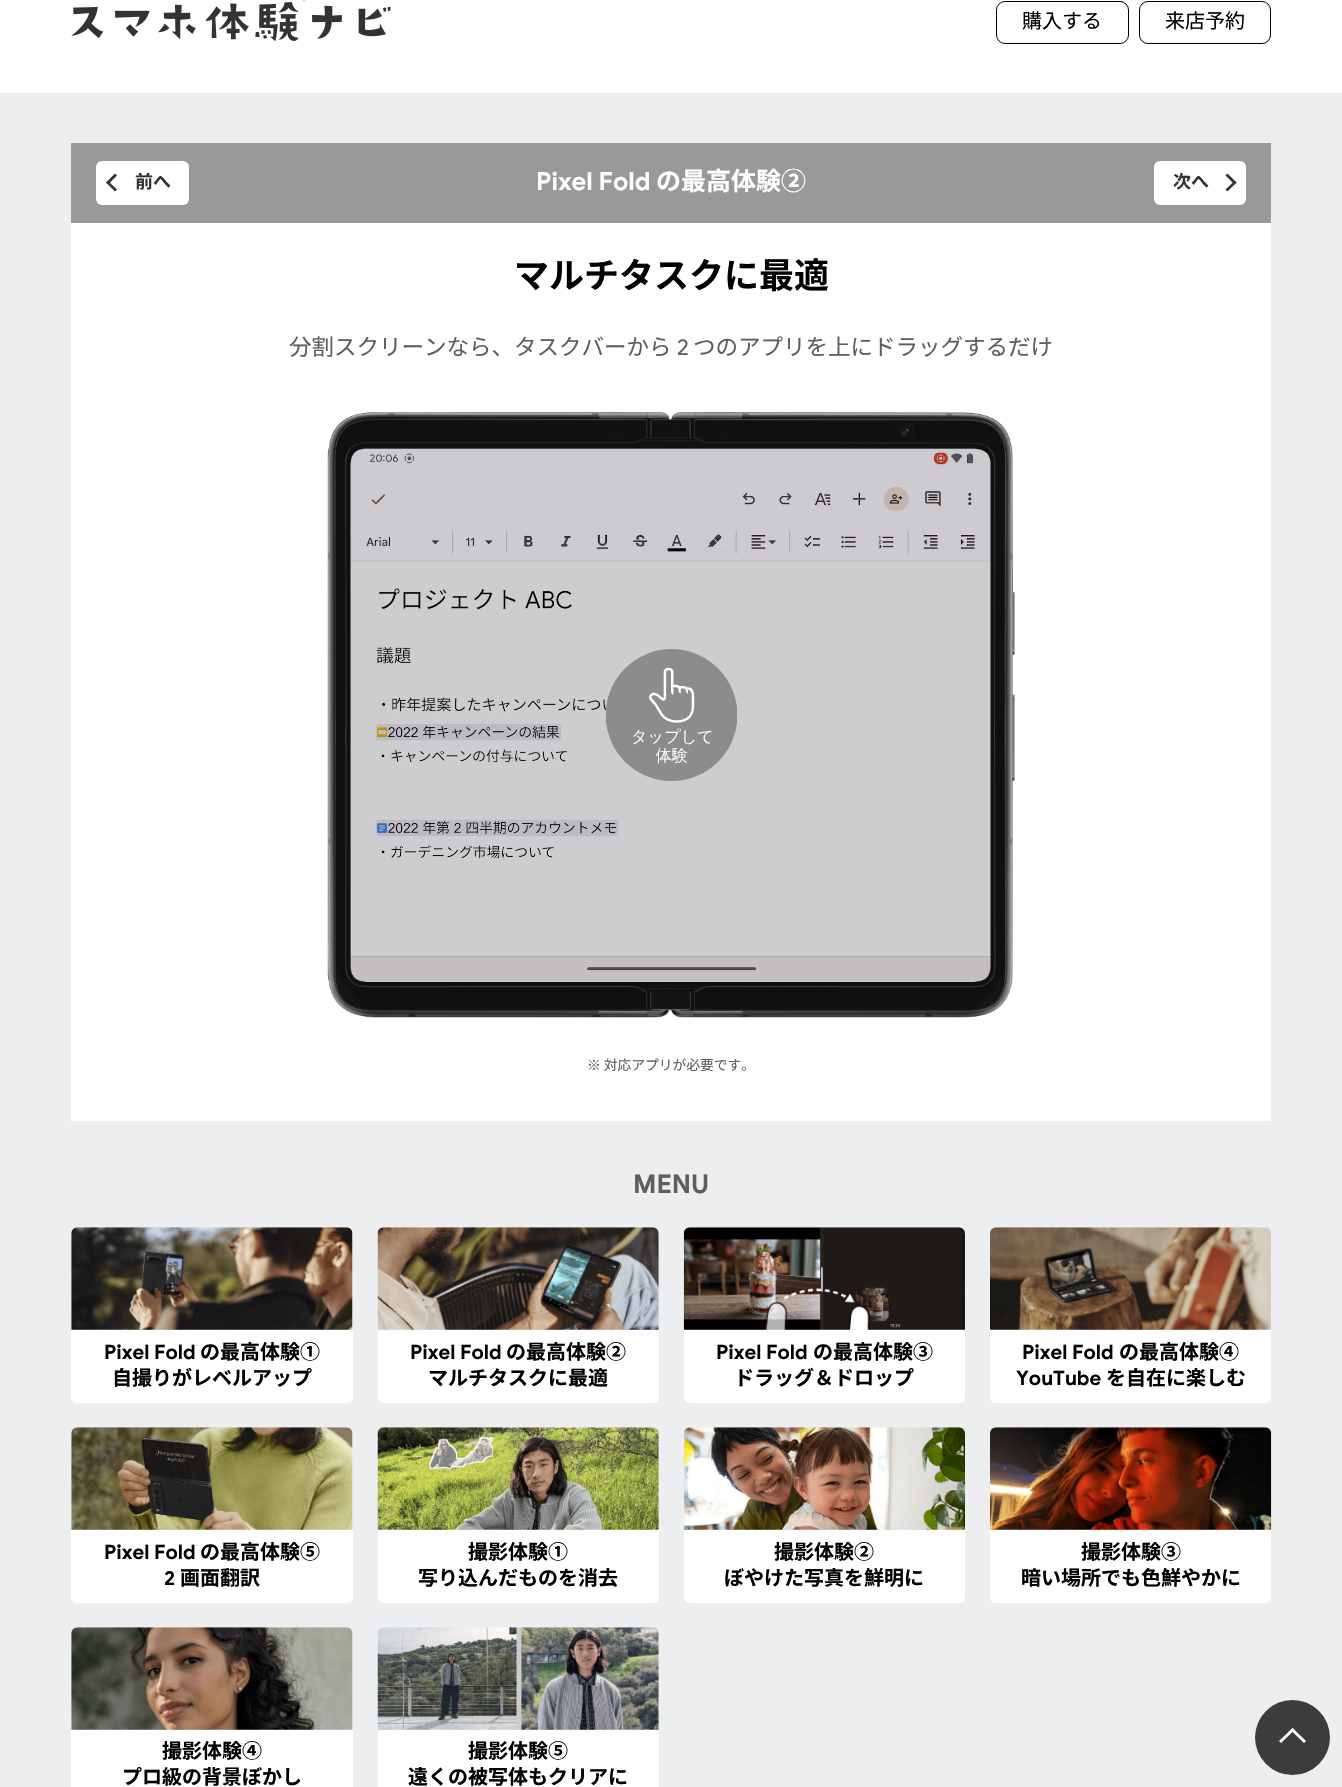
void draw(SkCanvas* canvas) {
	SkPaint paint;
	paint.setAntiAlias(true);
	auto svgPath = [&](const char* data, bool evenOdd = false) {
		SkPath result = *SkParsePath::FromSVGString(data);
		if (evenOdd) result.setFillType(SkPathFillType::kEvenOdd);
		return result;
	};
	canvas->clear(0xffedeeef);
	paint.setColor(0xffffffff);
	canvas->drawRect(SkRect::MakeXYWH(0, 0, 1342, 93), paint);
	canvas->drawImageRect(SkImages::DeferredFromEncodedData(SkData::MakeFromFileName("img1.png")), SkRect::MakeXYWH(71, 0, 320, 41), SkSamplingOptions());
	paint.setStroke(true);
	paint.setStrokeWidth(1);
	paint.setColor(0xff000000);
	canvas->drawRoundRect(SkRect::MakeXYWH(996.5, 1.5, 132, 42), 8.5, 8.5, paint);
	SkFont f1(fontMgr->matchFamilyStyle("Noto Sans JP", SkFontStyle::Normal()), 20);
	f1.setSubpixel(true);
	paint.setStroke(false);
	canvas->drawString("購入する", 1022, 28, f1, paint);
	paint.setStroke(true);
	canvas->drawRoundRect(SkRect::MakeXYWH(1139.5, 1.5, 131, 42), 8.5, 8.5, paint);
	paint.setStroke(false);
	canvas->drawString("来店予約", 1165, 28, f1, paint);
	paint.setColor(0xff999999);
	canvas->drawRect(SkRect::MakeXYWH(71, 143, 1200, 80), paint);
	paint.setColor(0xffffffff);
	canvas->drawRoundRect(SkRect::MakeXYWH(96, 161, 93, 44), 6, 6, paint);
	paint.setColor(0xff333333);
	canvas->drawPath(svgPath("M108 181L117 189.5L115 191.5L106 182.5Z"), paint);
	canvas->drawPath(svgPath("M115 173.5L117 175.5L108 184.5L106 182.5Z"), paint);
	SkFont f2(fontMgr->matchFamilyStyle("Noto Sans JP", SkFontStyle::Bold()), 18);
	f2.setSubpixel(true);
	canvas->drawString("前へ", 135, 188, f2, paint);
	SkFont f3(fontMgr->matchFamilyStyle("Google Sans", SkFontStyle::Bold()), 25);
	f3.setSubpixel(true);
	paint.setColor(0xffffffff);
	canvas->drawString("Pixel Fold", 536, 190, f3, paint);
	SkFont f4(fontMgr->matchFamilyStyle("Noto Sans JP", SkFontStyle::Bold()), 25);
	f4.setSubpixel(true);
	canvas->drawString("の最⾼体験②", 656, 190, f4, paint);
	canvas->drawRoundRect(SkRect::MakeXYWH(1154, 161, 92, 44), 6, 6, paint);
	paint.setColor(0xff333333);
	canvas->drawString("次へ", 1173, 188, f2, paint);
	canvas->drawPath(svgPath("M1227.5 173.5L1236.5 182.5L1234.5 184.5L1225.5 175.5Z"), paint);
	canvas->drawPath(svgPath("M1234.5 181L1236.5 182.5L1227.5 191.5L1225.5 189.5Z"), paint);
	paint.setColor(0xffffffff);
	canvas->drawRect(SkRect::MakeXYWH(71, 223, 1200, 898), paint);
	SkFont f5(fontMgr->matchFamilyStyle("Noto Sans JP", SkFontStyle::Bold()), 35);
	f5.setSubpixel(true);
	paint.setColor(0xff000000);
	canvas->drawString("マルチタスクに最適", 514, 288, f5, paint);
	SkFont f6(fontMgr->matchFamilyStyle("Noto Sans JP", SkFontStyle::Normal()), 22.5);
	f6.setSubpixel(true);
	paint.setColor(0xff5e5e5e);
	canvas->drawString("分割スクリーンなら、タスクバーから", 289, 355, f6, paint);
	SkFont f7(fontMgr->matchFamilyStyle("Google Sans", SkFontStyle::Normal()), 22.5);
	f7.setSubpixel(true);
	canvas->drawString("2", 677, 355, f7, paint);
	canvas->drawString("つのアプリを上にドラッグするだけ", 693, 355, f6, paint);
	canvas->drawImageRect(SkImages::DeferredFromEncodedData(SkData::MakeFromFileName("img3.png")), SkRect::MakeXYWH(350, 448, 641, 533), SkSamplingOptions());
	canvas->drawImageRect(SkImages::DeferredFromEncodedData(SkData::MakeFromFileName("img2.png")), SkRect::MakeXYWH(327, 412, 688, 606), SkSamplingOptions());
	canvas->drawImageRect(SkImages::DeferredFromEncodedData(SkData::MakeFromFileName("img4.png")), SkRect::MakeXYWH(606, 649, 131, 132), SkSamplingOptions());
	SkFont f8(fontMgr->matchFamilyStyle("Noto Sans JP", SkFontStyle::Normal()), 13.75);
	f8.setSubpixel(true);
	canvas->drawString("※ 対応アプリが必要です。", 587, 1070, f8, paint);
	SkFont f9(fontMgr->matchFamilyStyle("Google Sans", SkFontStyle::Bold()), 26);
	f9.setSubpixel(true);
	canvas->drawString("MENU", 633, 1193, f9, paint);
	canvas->drawImageRect(SkImages::DeferredFromEncodedData(SkData::MakeFromFileName("img5.png")), SkRect::MakeXYWH(71, 1227, 282, 103), SkSamplingOptions());
	paint.setColor(0xffffffff);
	canvas->drawPath(svgPath("M71 1330H353V1397C353 1400.5 350.5 1403 347 1403H77C73.5 1403 71 1400.5 71 1397Z"), paint);
	SkFont f10(fontMgr->matchFamilyStyle("Google Sans", SkFontStyle::Bold()), 20);
	f10.setSubpixel(true);
	paint.setColor(0xff000000);
	canvas->drawString("Pixel Fold", 104, 1359, f10, paint);
	SkFont f11(fontMgr->matchFamilyStyle("Noto Sans JP", SkFontStyle::Bold()), 20);
	f11.setSubpixel(true);
	canvas->drawString("の最⾼体験①", 200, 1359, f11, paint);
	canvas->drawString("⾃撮りがレベルアップ", 112, 1385, f11, paint);
	canvas->drawImageRect(SkImages::DeferredFromEncodedData(SkData::MakeFromFileName("img6.png")), SkRect::MakeXYWH(377, 1227, 282, 103), SkSamplingOptions());
	paint.setColor(0xffffffff);
	canvas->drawPath(svgPath("M378 1330H659V1397C659 1400.5 656.5 1403 653 1403H384C380.5 1403 378 1400.5 378 1397Z"), paint);
	paint.setColor(0xff000000);
	canvas->drawString("Pixel Fold", 410, 1359, f10, paint);
	canvas->drawString("の最⾼体験②", 506, 1359, f11, paint);
	canvas->drawString("マルチタスクに最適", 428, 1385, f11, paint);
	canvas->drawImageRect(SkImages::DeferredFromEncodedData(SkData::MakeFromFileName("img7.png")), SkRect::MakeXYWH(683, 1227, 282, 103), SkSamplingOptions());
	paint.setColor(0xffffffff);
	canvas->drawPath(svgPath("M684 1330H965V1397C965 1400.5 962.5 1403 959 1403H690C686.5 1403 684 1400.5 684 1397Z"), paint);
	paint.setColor(0xff000000);
	canvas->drawString("Pixel Fold", 716, 1359, f10, paint);
	canvas->drawString("の最⾼体験③", 813, 1359, f11, paint);
	canvas->drawString("ドラッグ＆ドロップ", 734, 1385, f11, paint);
	canvas->drawImageRect(SkImages::DeferredFromEncodedData(SkData::MakeFromFileName("img8.png")), SkRect::MakeXYWH(990, 1227, 281, 103), SkSamplingOptions());
	paint.setColor(0xffffffff);
	canvas->drawPath(svgPath("M990 1330H1271V1397C1271 1400.5 1268.5 1403 1265 1403H996C992.5 1403 990 1400.5 990 1397Z"), paint);
	paint.setColor(0xff000000);
	canvas->drawString("Pixel Fold", 1022, 1359, f10, paint);
	canvas->drawString("の最⾼体験④", 1119, 1359, f11, paint);
	canvas->drawString("YouTube", 1016, 1385, f10, paint);
	canvas->drawString("を⾃在に楽しむ", 1106, 1385, f11, paint);
	canvas->drawImageRect(SkImages::DeferredFromEncodedData(SkData::MakeFromFileName("img9.png")), SkRect::MakeXYWH(71, 1427, 282, 103), SkSamplingOptions());
	paint.setColor(0xffffffff);
	canvas->drawPath(svgPath("M71 1530H353V1597C353 1600.5 350.5 1603 347 1603H77C73.5 1603 71 1600.5 71 1597Z"), paint);
	paint.setColor(0xff000000);
	canvas->drawString("Pixel Fold", 104, 1559, f10, paint);
	canvas->drawString("の最⾼体験⑤", 200, 1559, f11, paint);
	canvas->drawString("2", 164, 1585, f10, paint);
	canvas->drawString("画面翻訳", 180, 1585, f11, paint);
	canvas->drawImageRect(SkImages::DeferredFromEncodedData(SkData::MakeFromFileName("img10.png")), SkRect::MakeXYWH(377, 1427, 282, 103), SkSamplingOptions());
	paint.setColor(0xffffffff);
	canvas->drawPath(svgPath("M378 1530H659V1597C659 1600.5 656.5 1603 653 1603H384C380.5 1603 378 1600.5 378 1597Z"), paint);
	paint.setColor(0xff000000);
	canvas->drawString("撮影体験①", 468, 1559, f11, paint);
	canvas->drawString("写り込んだものを消去", 418, 1585, f11, paint);
	canvas->drawImageRect(SkImages::DeferredFromEncodedData(SkData::MakeFromFileName("img11.png")), SkRect::MakeXYWH(683, 1427, 282, 103), SkSamplingOptions());
	paint.setColor(0xffffffff);
	canvas->drawPath(svgPath("M684 1530H965V1597C965 1600.5 962.5 1603 959 1603H690C686.5 1603 684 1600.5 684 1597Z"), paint);
	paint.setColor(0xff000000);
	canvas->drawString("撮影体験②", 774, 1559, f11, paint);
	canvas->drawString("ぼやけた写真を鮮明に", 724, 1585, f11, paint);
	canvas->drawImageRect(SkImages::DeferredFromEncodedData(SkData::MakeFromFileName("img12.png")), SkRect::MakeXYWH(990, 1427, 282, 103), SkSamplingOptions());
	paint.setColor(0xffffffff);
	canvas->drawPath(svgPath("M990 1530H1271V1597C1271 1600.5 1268.5 1603 1265 1603H996C992.5 1603 990 1600.5 990 1597Z"), paint);
	paint.setColor(0xff000000);
	canvas->drawString("撮影体験③", 1081, 1559, f11, paint);
	canvas->drawString("暗い場所でも色鮮やかに", 1021, 1585, f11, paint);
	canvas->drawImageRect(SkImages::DeferredFromEncodedData(SkData::MakeFromFileName("img13.png")), SkRect::MakeXYWH(71, 1627, 282, 103), SkSamplingOptions());
	paint.setColor(0xffffffff);
	canvas->drawRect(SkRect::MakeXYWH(71, 1730, 282, 57), paint);
	paint.setColor(0xff000000);
	canvas->drawString("撮影体験④", 162, 1758, f11, paint);
	canvas->drawString("プロ級の背景ぼかし", 122, 1784, f11, paint);
	canvas->drawImageRect(SkImages::DeferredFromEncodedData(SkData::MakeFromFileName("img14.png")), SkRect::MakeXYWH(377, 1627, 282, 103), SkSamplingOptions());
	paint.setColor(0xffffffff);
	canvas->drawRect(SkRect::MakeXYWH(378, 1730, 281, 57), paint);
	paint.setColor(0xff000000);
	canvas->drawString("撮影体験⑤", 468, 1758, f11, paint);
	canvas->drawString("遠くの被写体もクリアに", 408, 1784, f11, paint);
	paint.setColor(0xff3b3c3c);
	canvas->drawCircle(1292.5, 1737.5, 37.5, paint);
	paint.setColor(0xffffffff);
	canvas->drawPath(svgPath("M1279 1741L1292.5 1728L1294.5 1730L1281 1743Z"), paint);
	canvas->drawPath(svgPath("M1290.5 1730L1292.5 1728L1306 1741L1304 1743Z"), paint);
}
